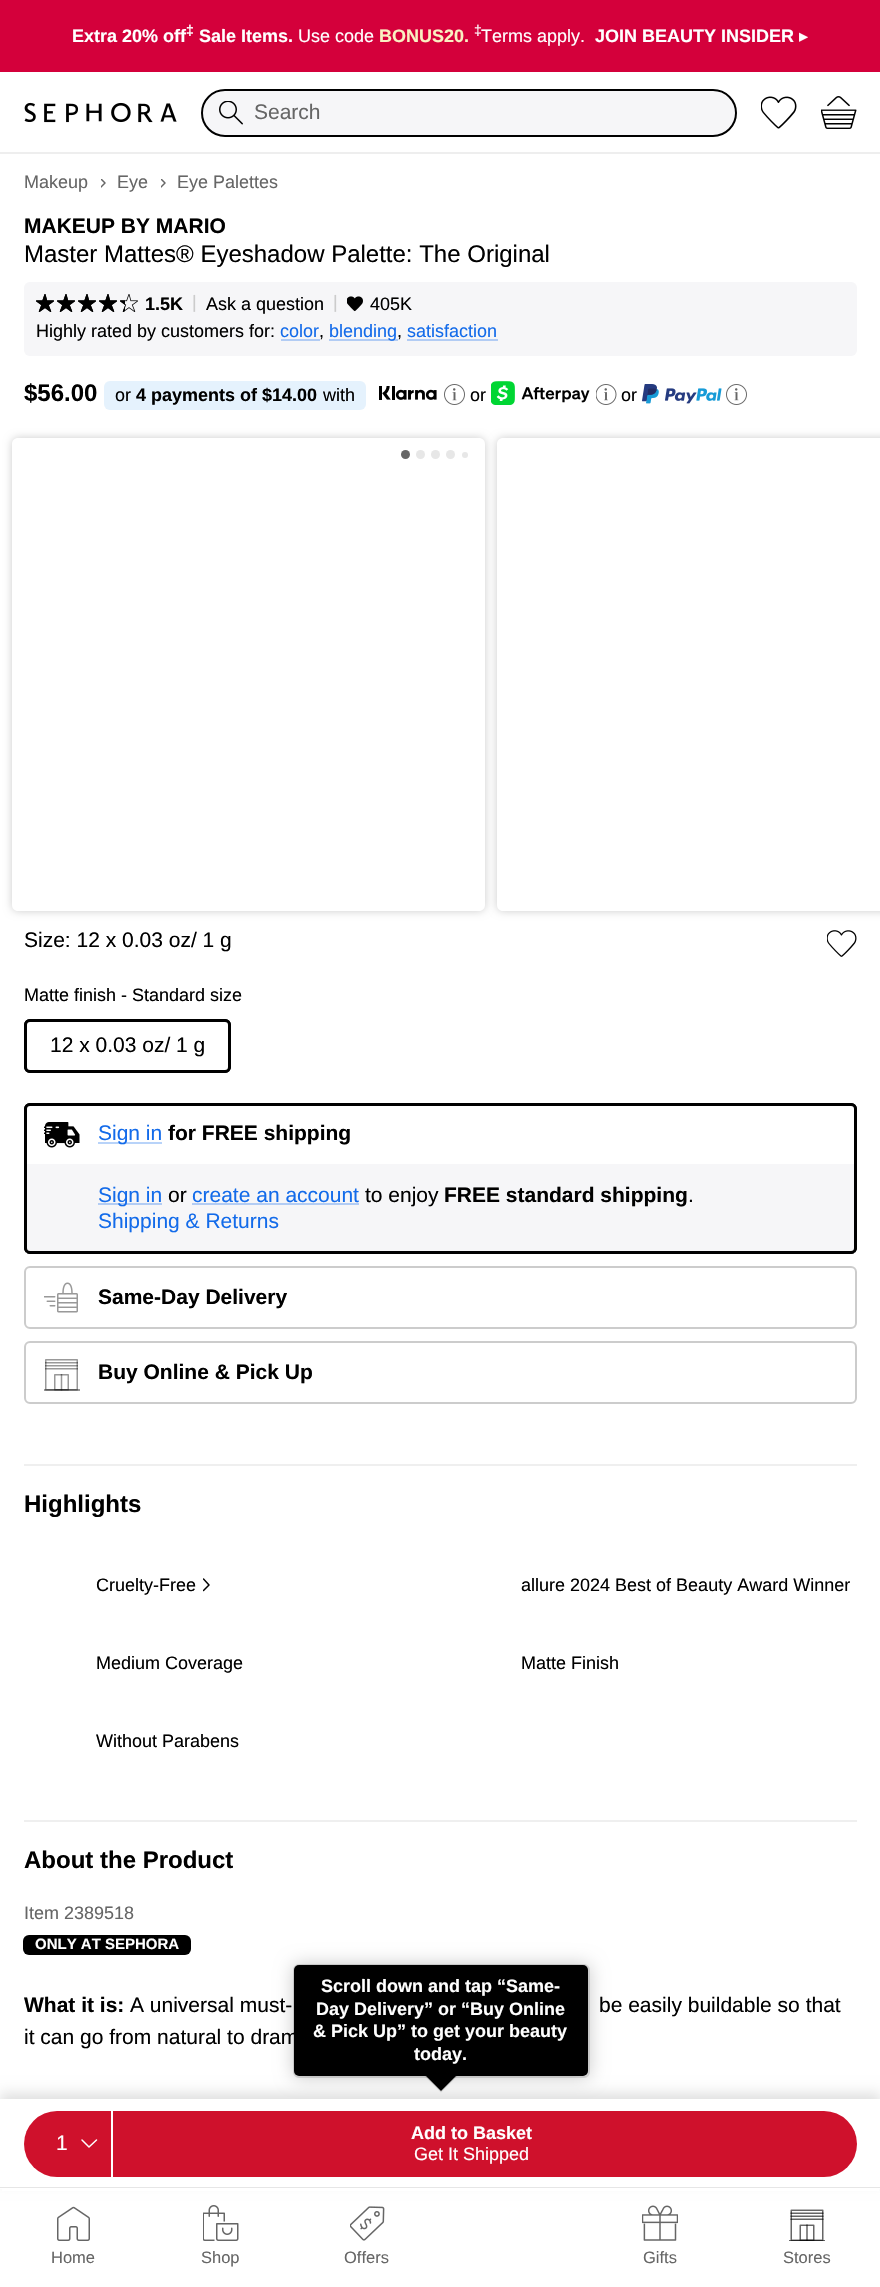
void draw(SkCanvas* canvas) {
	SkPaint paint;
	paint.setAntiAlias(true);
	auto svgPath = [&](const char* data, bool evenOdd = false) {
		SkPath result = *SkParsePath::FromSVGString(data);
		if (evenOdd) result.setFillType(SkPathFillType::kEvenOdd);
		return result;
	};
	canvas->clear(0xffffffff);
	paint.setColor(0xffd4003b);
	canvas->drawRect(SkRect::MakeXYWH(0, 0, 880, 72), paint);
	SkFont f1(fontMgr->matchFamilyStyle("Liberation Sans", SkFontStyle::Bold()), 18);
	f1.setSubpixel(true);
	paint.setColor(0xffffffff);
	canvas->drawString("Extra 20% off", 72, 42, f1, paint);
	SkFont f2(fontMgr->matchFamilyStyle("Liberation Sans", SkFontStyle::Bold()), 14);
	f2.setSubpixel(true);
	canvas->drawString("‡", 186, 35, f2, paint);
	canvas->drawString("Sale Items.", 199, 42, f1, paint);
	SkFont f3(fontMgr->matchFamilyStyle("Liberation Sans", SkFontStyle::Normal()), 18);
	f3.setSubpixel(true);
	canvas->drawString("Use code", 298, 42, f3, paint);
	paint.setColor(0xfffaf0c2);
	canvas->drawString("BONUS20.", 379, 42, f1, paint);
	SkFont f4(fontMgr->matchFamilyStyle("Liberation Sans", SkFontStyle::Normal()), 14);
	f4.setSubpixel(true);
	paint.setColor(0xffffffff);
	canvas->drawString("‡", 474, 35, f4, paint);
	canvas->drawString("Terms apply.", 481, 42, f3, paint);
	canvas->drawString("JOIN BEAUTY INSIDER", 595, 42, f1, paint);
	SkFont f5(fontMgr->matchFamilyStyle("DejaVu Sans", SkFontStyle::Normal()), 18);
	f5.setSubpixel(true);
	canvas->drawString("▸", 799, 42, f5, paint);
	paint.setColor(0xffeeeeee);
	canvas->drawRect(SkRect::MakeXYWH(0, 152, 880, 2), paint);
	canvas->drawImageRect(SkImages::DeferredFromEncodedData(SkData::MakeFromFileName("img1.png")), SkRect::MakeXYWH(24, 102, 153, 21), SkSamplingOptions());
	paint.setColor(0xfff6f6f8);
	canvas->drawRoundRect(SkRect::MakeXYWH(202, 90, 534, 46), 23, 23, paint);
	paint.setStroke(true);
	paint.setStrokeWidth(2);
	paint.setColor(0xff000000);
	canvas->drawRoundRect(SkRect::MakeXYWH(202, 90, 534, 46), 23, 23, paint);
	canvas->drawImageRect(SkImages::DeferredFromEncodedData(SkData::MakeFromFileName("img2.png")), SkRect::MakeXYWH(219, 101, 24, 24), SkSamplingOptions());
	SkFont f6(fontMgr->matchFamilyStyle("Liberation Sans", SkFontStyle::Normal()), 21);
	f6.setSubpixel(true);
	paint.setStroke(false);
	paint.setColor(0xff666666);
	canvas->drawString("Search", 254, 119, f6, paint);
	canvas->drawImageRect(SkImages::DeferredFromEncodedData(SkData::MakeFromFileName("img3.png")), SkRect::MakeXYWH(761, 96, 36, 33), SkSamplingOptions());
	canvas->drawImageRect(SkImages::DeferredFromEncodedData(SkData::MakeFromFileName("img4.png")), SkRect::MakeXYWH(821, 96, 36, 33), SkSamplingOptions());
	paint.setColor(0x33000000);
	paint.setMaskFilter(SkMaskFilter::MakeBlur(kNormal_SkBlurStyle, 9));
	canvas->drawRoundRect(SkRect::MakeXYWH(293, 1964, 297, 114), 6, 6, paint);
	paint.setMaskFilter(nullptr);
	paint.setColor(0xff000000);
	canvas->drawRoundRect(SkRect::MakeXYWH(294, 1965, 294, 111), 5, 5, paint);
	canvas->drawString("it can go from natural to dram", 24, 2044, f6, paint);
	paint.setStroke(true);
	paint.setColor(0x1f000000);
	canvas->drawRoundRect(SkRect::MakeXYWH(294, 1965, 295, 112), 5, 5, paint);
	paint.setStroke(false);
	canvas->drawPath(svgPath("M424.5 2076H457.5L441 2092.5Z"), paint);
	paint.setColor(0xff000000);
	canvas->drawPath(svgPath("M426 2076H456L441 2091Z"), paint);
	paint.setColor(0x1f000000);
	paint.setMaskFilter(SkMaskFilter::MakeBlur(kNormal_SkBlurStyle, 6));
	canvas->drawRect(SkRect::MakeXYWH(0, 2093, 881, 90), paint);
	paint.setMaskFilter(nullptr);
	paint.setColor(0xffffffff);
	canvas->drawRect(SkRect::MakeXYWH(0, 2099, 880, 90), paint);
	paint.setColor(0xffe6e6e6);
	canvas->drawPath(svgPath("M0 2187V2188H880V2286H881V2187Z"), paint);
	paint.setColor(0xffffffff);
	canvas->drawRect(SkRect::MakeXYWH(2, 2189, 877, 2), paint);
	canvas->drawImageRect(SkImages::DeferredFromEncodedData(SkData::MakeFromFileName("img5.png")), SkRect::MakeXYWH(57, 2206, 33, 35), SkSamplingOptions());
	SkFont f7(fontMgr->matchFamilyStyle("Liberation Sans", SkFontStyle::Normal()), 16.5);
	f7.setSubpixel(true);
	paint.setColor(0xff666666);
	canvas->drawString("Home", 51, 2263, f7, paint);
	canvas->drawImageRect(SkImages::DeferredFromEncodedData(SkData::MakeFromFileName("img6.png")), SkRect::MakeXYWH(203, 2205, 36, 36), SkSamplingOptions());
	canvas->drawString("Shop", 201, 2263, f7, paint);
	canvas->drawImageRect(SkImages::DeferredFromEncodedData(SkData::MakeFromFileName("img7.png")), SkRect::MakeXYWH(350, 2206, 35, 35), SkSamplingOptions());
	canvas->drawString("Offers", 344, 2263, f7, paint);
	canvas->drawImageRect(SkImages::DeferredFromEncodedData(SkData::MakeFromFileName("img8.png")), SkRect::MakeXYWH(642, 2205, 36, 36), SkSamplingOptions());
	canvas->drawString("Gifts", 643, 2263, f7, paint);
	canvas->drawImageRect(SkImages::DeferredFromEncodedData(SkData::MakeFromFileName("img9.png")), SkRect::MakeXYWH(789, 2209, 36, 32), SkSamplingOptions());
	canvas->drawString("Stores", 783, 2263, f7, paint);
	canvas->drawString("Makeup", 24, 188, f3, paint);
	canvas->save();
	canvas->clipRect(SkRect::MakeXYWH(101, 179, 5, 9));
	paint.setStroke(true);
	paint.setStrokeWidth(1.5);
	paint.setStrokeCap(SkPaint::kRound_Cap);
	paint.setStrokeJoin(SkPaint::kRound_Join);
	canvas->drawPath(svgPath("M101 187L105 183L101 179"), paint);
	canvas->restore();
	paint.setStroke(false);
	canvas->drawString("Eye", 117, 188, f3, paint);
	canvas->save();
	canvas->clipRect(SkRect::MakeXYWH(161, 179, 5, 9));
	paint.setStroke(true);
	canvas->drawPath(svgPath("M161 187L165 183L161 179"), paint);
	canvas->restore();
	paint.setStroke(false);
	canvas->drawString("Eye Palettes", 177, 188, f3, paint);
	SkFont f8(fontMgr->matchFamilyStyle("Liberation Sans", SkFontStyle::Bold()), 21);
	f8.setSubpixel(true);
	paint.setColor(0xff000000);
	canvas->drawString("MAKEUP BY MARIO", 24, 233, f8, paint);
	SkFont f9(fontMgr->matchFamilyStyle("Liberation Sans", SkFontStyle::Normal()), 24);
	f9.setSubpixel(true);
	canvas->drawString("Master Mattes® Eyeshadow Palette: The Original", 24, 262, f9, paint);
	paint.setColor(0xfff6f6f8);
	canvas->drawRoundRect(SkRect::MakeXYWH(24, 282, 833, 74), 6, 6, paint);
	canvas->drawImageRect(SkImages::DeferredFromEncodedData(SkData::MakeFromFileName("img10.png")), SkRect::MakeXYWH(36, 294, 18, 18), SkSamplingOptions());
	canvas->drawImageRect(SkImages::DeferredFromEncodedData(SkData::MakeFromFileName("img10.png")), SkRect::MakeXYWH(57, 294, 18, 18), SkSamplingOptions());
	canvas->drawImageRect(SkImages::DeferredFromEncodedData(SkData::MakeFromFileName("img10.png")), SkRect::MakeXYWH(78, 294, 18, 18), SkSamplingOptions());
	canvas->drawImageRect(SkImages::DeferredFromEncodedData(SkData::MakeFromFileName("img10.png")), SkRect::MakeXYWH(99, 294, 18, 18), SkSamplingOptions());
	canvas->drawImageRect(SkImages::DeferredFromEncodedData(SkData::MakeFromFileName("img10.png")), SkRect::MakeXYWH(120, 294, 18, 18), SkSamplingOptions());
	canvas->drawImageRect(SkImages::DeferredFromEncodedData(SkData::MakeFromFileName("img11.png")), SkRect::MakeXYWH(36, 294, 18, 18), SkSamplingOptions());
	canvas->drawImageRect(SkImages::DeferredFromEncodedData(SkData::MakeFromFileName("img11.png")), SkRect::MakeXYWH(57, 294, 18, 18), SkSamplingOptions());
	canvas->drawImageRect(SkImages::DeferredFromEncodedData(SkData::MakeFromFileName("img11.png")), SkRect::MakeXYWH(78, 294, 18, 18), SkSamplingOptions());
	canvas->drawImageRect(SkImages::DeferredFromEncodedData(SkData::MakeFromFileName("img11.png")), SkRect::MakeXYWH(99, 294, 18, 18), SkSamplingOptions());
	canvas->drawImageRect(SkImages::DeferredFromEncodedData(SkData::MakeFromFileName("img12.png")), SkRect::MakeXYWH(120, 300, 5, 12), SkSamplingOptions());
	paint.setColor(0xff000000);
	canvas->drawString("1.5K", 145, 310, f1, paint);
	paint.setColor(0xffcccccc);
	canvas->drawString("|", 192, 308, f3, paint);
	paint.setColor(0xff000000);
	canvas->drawString("Ask a question", 206, 310, f3, paint);
	paint.setColor(0xffcccccc);
	canvas->drawString("|", 333, 308, f3, paint);
	canvas->drawImageRect(SkImages::DeferredFromEncodedData(SkData::MakeFromFileName("img13.png")), SkRect::MakeXYWH(347, 296, 16, 16), SkSamplingOptions());
	paint.setColor(0xff000000);
	canvas->drawString("405K", 370, 310, f3, paint);
	canvas->drawString("Highly rated by customers for:", 36, 337, f3, paint);
	paint.setColor(0xff136bea);
	canvas->drawString("color", 280, 337, f3, paint);
	paint.setColor(0xffb2ccf4);
	canvas->drawRect(SkRect::MakeXYWH(281, 339, 39, 2), paint);
	paint.setColor(0xff000000);
	canvas->drawString(",", 319, 337, f3, paint);
	paint.setColor(0xffb2ccf4);
	canvas->drawRect(SkRect::MakeXYWH(329, 339, 69, 2), paint);
	paint.setColor(0xff136bea);
	canvas->drawString("blending", 329, 337, f3, paint);
	paint.setColor(0xff000000);
	canvas->drawString(",", 397, 337, f3, paint);
	paint.setColor(0xff136bea);
	canvas->drawString("satisfaction", 407, 337, f3, paint);
	paint.setColor(0xffb2ccf4);
	canvas->drawRect(SkRect::MakeXYWH(407, 339, 91, 2), paint);
	SkFont f10(fontMgr->matchFamilyStyle("Liberation Sans", SkFontStyle::Bold()), 24);
	f10.setSubpixel(true);
	paint.setColor(0xff000000);
	canvas->drawString("$56.00", 24, 401, f10, paint);
	paint.setColor(0xffe5f2fd);
	canvas->drawRoundRect(SkRect::MakeXYWH(104, 381, 262, 29), 6, 6, paint);
	paint.setColor(0xff000000);
	canvas->drawString("or", 115, 401, f3, paint);
	canvas->drawString("4 payments of $14.00", 136, 401, f1, paint);
	canvas->drawString("with", 323, 401, f3, paint);
	canvas->drawImageRect(SkImages::DeferredFromEncodedData(SkData::MakeFromFileName("img14.png")), SkRect::MakeXYWH(379, 386, 58, 14), SkSamplingOptions());
	canvas->drawImageRect(SkImages::DeferredFromEncodedData(SkData::MakeFromFileName("img15.png")), SkRect::MakeXYWH(444, 384, 21, 21), SkSamplingOptions());
	canvas->drawString("or", 470, 401, f3, paint);
	canvas->drawImageRect(SkImages::DeferredFromEncodedData(SkData::MakeFromFileName("img16.png")), SkRect::MakeXYWH(491, 381, 99, 24), SkSamplingOptions());
	canvas->drawImageRect(SkImages::DeferredFromEncodedData(SkData::MakeFromFileName("img17.png")), SkRect::MakeXYWH(596, 384, 21, 21), SkSamplingOptions());
	canvas->drawString("or", 621, 401, f3, paint);
	canvas->drawImageRect(SkImages::DeferredFromEncodedData(SkData::MakeFromFileName("img18.png")), SkRect::MakeXYWH(642, 384, 80, 20), SkSamplingOptions());
	canvas->drawImageRect(SkImages::DeferredFromEncodedData(SkData::MakeFromFileName("img15.png")), SkRect::MakeXYWH(726, 384, 21, 21), SkSamplingOptions());
	canvas->save();
	canvas->clipPath(svgPath("M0 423H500V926H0ZM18 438H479C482.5 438 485 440.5 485 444V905C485 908.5 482.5 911 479 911H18C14.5 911 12 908.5 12 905V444C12 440.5 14.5 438 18 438Z", true), true);
	paint.setColor(0x33000000);
	paint.setMaskFilter(SkMaskFilter::MakeBlur(kNormal_SkBlurStyle, 4.5));
	canvas->drawRoundRect(SkRect::MakeXYWH(12, 438, 473, 473), 6, 6, paint);
	paint.setMaskFilter(nullptr);
	canvas->restore();
	canvas->save();
	canvas->clipPath(svgPath("M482 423H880V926H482ZM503 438H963C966.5 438 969 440.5 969 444V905C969 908.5 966.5 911 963 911H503C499.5 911 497 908.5 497 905V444C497 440.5 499.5 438 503 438Z", true), true);
	paint.setMaskFilter(SkMaskFilter::MakeBlur(kNormal_SkBlurStyle, 4.5));
	canvas->drawRoundRect(SkRect::MakeXYWH(497, 438, 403, 473), 6, 6, paint);
	paint.setMaskFilter(nullptr);
	canvas->restore();
	paint.setColor(0xff666666);
	canvas->drawCircle(405.5, 454.5, 4.5, paint);
	paint.setColor(0xffe7e7e7);
	canvas->drawCircle(420.5, 454.5, 4.5, paint);
	canvas->drawCircle(435.5, 454.5, 4.5, paint);
	canvas->drawCircle(450.5, 454.5, 4.5, paint);
	canvas->drawCircle(465, 455, 3, paint);
	paint.setColor(0xff000000);
	canvas->drawString("Size: 12 x 0.03 oz/ 1 g", 24, 947, f6, paint);
	canvas->drawImageRect(SkImages::DeferredFromEncodedData(SkData::MakeFromFileName("img19.png")), SkRect::MakeXYWH(827, 930, 30, 27), SkSamplingOptions());
	canvas->drawString("Matte finish - Standard size", 24, 1001, f3, paint);
	paint.setStroke(true);
	paint.setStrokeWidth(2);
	paint.setStrokeCap(SkPaint::kButt_Cap);
	paint.setStrokeJoin(SkPaint::kMiter_Join);
	canvas->drawRoundRect(SkRect::MakeXYWH(25, 1020, 205, 52), 5, 5, paint);
	paint.setStrokeWidth(3);
	canvas->drawRoundRect(SkRect::MakeXYWH(25.5, 1020.5, 204, 51), 4.5, 4.5, paint);
	paint.setStroke(false);
	canvas->drawString("12 x 0.03 oz/ 1 g", 50, 1052, f6, paint);
	paint.setStroke(true);
	paint.setStrokeWidth(2);
	canvas->drawRoundRect(SkRect::MakeXYWH(25, 1104, 831, 149), 5, 5, paint);
	canvas->drawImageRect(SkImages::DeferredFromEncodedData(SkData::MakeFromFileName("img20.png")), SkRect::MakeXYWH(44, 1122, 36, 26), SkSamplingOptions());
	paint.setStroke(false);
	paint.setColor(0xffb8d3f9);
	canvas->drawRect(SkRect::MakeXYWH(98, 1142, 64, 2), paint);
	paint.setColor(0xfff6f6f8);
	canvas->drawRect(SkRect::MakeXYWH(26, 1164, 829, 89), paint);
	paint.setColor(0xffb2ccf4);
	canvas->drawRect(SkRect::MakeXYWH(98, 1203, 64, 2), paint);
	canvas->drawRect(SkRect::MakeXYWH(192, 1203, 167, 2), paint);
	paint.setStroke(true);
	paint.setStrokeWidth(3);
	paint.setColor(0xff000000);
	canvas->drawRoundRect(SkRect::MakeXYWH(25.5, 1104.5, 830, 148), 4.5, 4.5, paint);
	paint.setStroke(false);
	paint.setColor(0xff136bea);
	canvas->drawString("Sign in", 98, 1140, f6, paint);
	paint.setColor(0xff000000);
	canvas->drawString("for FREE shipping", 168, 1140, f8, paint);
	paint.setColor(0xff136bea);
	canvas->drawString("Sign in", 98, 1202, f6, paint);
	paint.setColor(0xff000000);
	canvas->drawString("or", 168, 1202, f6, paint);
	paint.setColor(0xff136bea);
	canvas->drawString("create an account", 192, 1202, f6, paint);
	paint.setColor(0xff000000);
	canvas->drawString("to enjoy", 365, 1202, f6, paint);
	canvas->drawString("FREE standard shipping", 444, 1202, f8, paint);
	canvas->drawString(".", 688, 1202, f6, paint);
	paint.setColor(0xff136bea);
	canvas->drawString("Shipping & Returns", 98, 1228, f6, paint);
	paint.setStroke(true);
	paint.setStrokeWidth(2);
	paint.setColor(0xffcccccc);
	canvas->drawRoundRect(SkRect::MakeXYWH(25, 1267, 831, 61), 5, 5, paint);
	canvas->drawImageRect(SkImages::DeferredFromEncodedData(SkData::MakeFromFileName("img21.png")), SkRect::MakeXYWH(44, 1282, 34, 31), SkSamplingOptions());
	paint.setStroke(false);
	paint.setColor(0xff000000);
	canvas->drawString("Same-Day Delivery", 98, 1304, f8, paint);
	paint.setStroke(true);
	paint.setColor(0xffcccccc);
	canvas->drawRoundRect(SkRect::MakeXYWH(25, 1342, 831, 61), 5, 5, paint);
	canvas->drawImageRect(SkImages::DeferredFromEncodedData(SkData::MakeFromFileName("img22.png")), SkRect::MakeXYWH(44, 1359, 36, 32), SkSamplingOptions());
	paint.setStroke(false);
	paint.setColor(0xff000000);
	canvas->drawString("Buy Online & Pick Up", 98, 1379, f8, paint);
	paint.setColor(0xffffffff);
	canvas->drawString("Scroll down and tap “Same-", 321, 1992, f1, paint);
	canvas->drawString("Day Delivery” or “Buy Online", 316, 2015, f1, paint);
	canvas->drawString("& Pick Up” to get your beauty", 313, 2037, f1, paint);
	canvas->drawString("today.", 414, 2060, f1, paint);
	paint.setColor(0xffcf112c);
	canvas->drawRoundRect(SkRect::MakeXYWH(24, 2111, 833, 66), 33, 33, paint);
	paint.setColor(0xffffffff);
	canvas->drawRect(SkRect::MakeXYWH(111, 2111, 2, 66), paint);
	canvas->drawString("1", 56, 2150, f6, paint);
	paint.setStroke(true);
	paint.setStrokeWidth(1.5);
	paint.setStrokeCap(SkPaint::kRound_Cap);
	paint.setStrokeJoin(SkPaint::kRound_Join);
	canvas->drawPath(svgPath("M82 2140L89 2147L96.5 2140"), paint);
	paint.setStroke(false);
	canvas->drawString("Add to Basket", 411, 2139, f1, paint);
	canvas->drawString("Get It Shipped", 414, 2160, f3, paint);
	paint.setColor(0xffefefef);
	canvas->drawRect(SkRect::MakeXYWH(24, 1464, 833, 2), paint);
	paint.setColor(0xff000000);
	canvas->drawString("Highlights", 24, 1512, f10, paint);
	canvas->drawString("Cruelty-Free", 96, 1591, f3, paint);
	canvas->save();
	canvas->clipRect(SkRect::MakeXYWH(203, 1578, 7, 14));
	paint.setStroke(true);
	canvas->drawPath(svgPath("M203.5 1590.5L209 1585L203.5 1579"), paint);
	canvas->restore();
	paint.setStroke(false);
	canvas->drawString("allure 2024 Best of Beauty Award Winner", 521, 1591, f3, paint);
	canvas->drawString("Medium Coverage", 96, 1669, f3, paint);
	canvas->drawString("Matte Finish", 521, 1669, f3, paint);
	canvas->drawString("Without Parabens", 96, 1747, f3, paint);
	paint.setColor(0xffefefef);
	canvas->drawRect(SkRect::MakeXYWH(24, 1820, 833, 2), paint);
	paint.setColor(0xff000000);
	canvas->drawString("About the Product", 24, 1868, f10, paint);
	paint.setColor(0xff666666);
	canvas->drawString("Item 2389518", 24, 1919, f3, paint);
	paint.setColor(0xff000000);
	canvas->drawRoundRect(SkRect::MakeXYWH(23, 1935, 168, 20), 6, 6, paint);
	SkFont f11(fontMgr->matchFamilyStyle("Liberation Sans", SkFontStyle::Bold()), 15);
	f11.setSubpixel(true);
	paint.setColor(0xffffffff);
	canvas->drawString("ONLY AT SEPHORA", 35, 1949, f11, paint);
	paint.setColor(0xff000000);
	canvas->drawString("What it is:", 24, 2012, f8, paint);
	canvas->drawString("A universal must-", 130, 2012, f6, paint);
	canvas->drawString("be easily buildable so that", 599, 2012, f6, paint);
}
